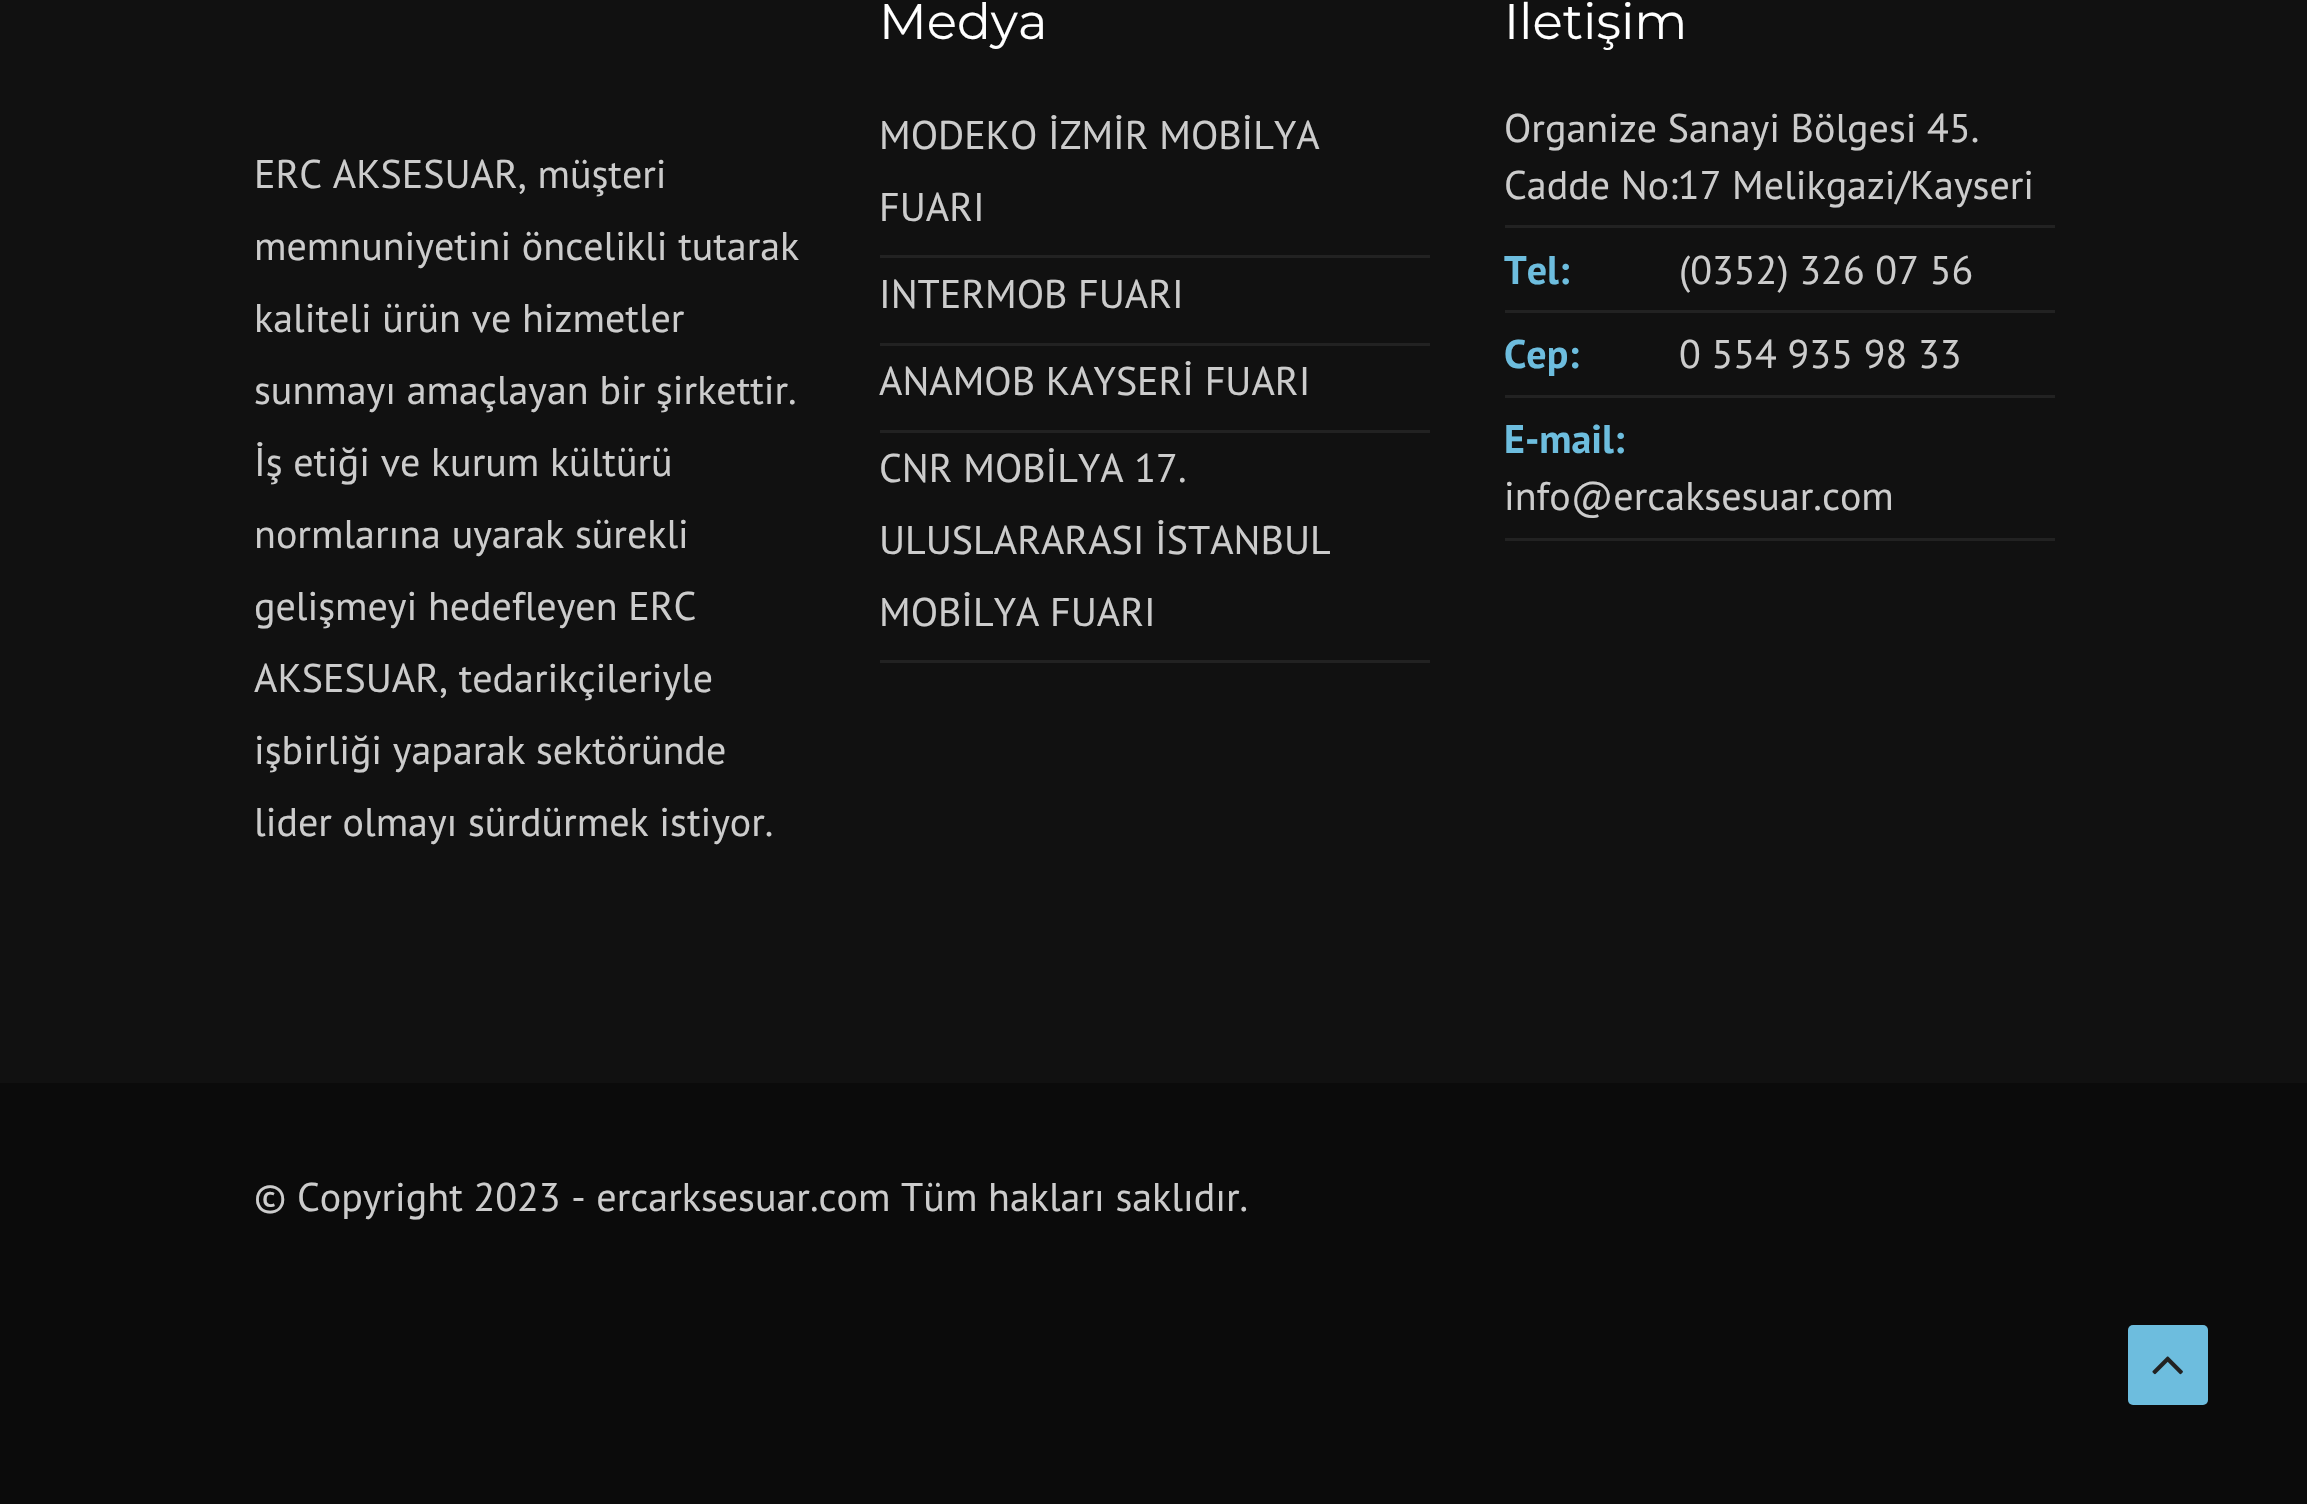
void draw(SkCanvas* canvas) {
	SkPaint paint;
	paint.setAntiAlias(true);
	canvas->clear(0xff111111);
	SkFont f1(fontMgr->matchFamilyStyle("PT Sans", SkFontStyle::Normal()), 40);
	f1.setSubpixel(true);
	paint.setColor(0xffcccccc);
	canvas->drawString("ERC AKSESUAR, müşteri", 254, 188, f1, paint);
	canvas->drawString("memnuniyetini öncelikli tutarak", 254, 260, f1, paint);
	canvas->drawString("kaliteli ürün ve hizmetler", 254, 332, f1, paint);
	canvas->drawString("sunmayı amaçlayan bir şirkettir.", 254, 404, f1, paint);
	canvas->drawString("İş etiği ve kurum kültürü", 254, 476, f1, paint);
	canvas->drawString("normlarına uyarak sürekli", 254, 548, f1, paint);
	canvas->drawString("gelişmeyi hedefleyen ERC", 254, 620, f1, paint);
	canvas->drawString("AKSESUAR, tedarikçileriyle", 254, 692, f1, paint);
	canvas->drawString("işbirliği yaparak sektöründe", 254, 764, f1, paint);
	canvas->drawString("lider olmayı sürdürmek istiyor.", 254, 836, f1, paint);
	SkFont f2(fontMgr->matchFamilyStyle("Montserrat", SkFontStyle::Normal()), 50);
	f2.setSubpixel(true);
	paint.setColor(0xffffffff);
	canvas->drawString("Medya", 879, 39, f2, paint);
	paint.setColor(0xff222222);
	canvas->drawRect(SkRect::MakeXYWH(880, 255, 550, 3), paint);
	paint.setColor(0xffcccccc);
	canvas->drawString("MODEKO İZMİR MOBİLYA", 879, 149, f1, paint);
	canvas->drawString("FUARI", 879, 221, f1, paint);
	paint.setColor(0xff222222);
	canvas->drawRect(SkRect::MakeXYWH(880, 343, 550, 3), paint);
	paint.setColor(0xffcccccc);
	canvas->drawString("INTERMOB FUARI", 879, 308, f1, paint);
	paint.setColor(0xff222222);
	canvas->drawRect(SkRect::MakeXYWH(880, 430, 550, 3), paint);
	paint.setColor(0xffcccccc);
	canvas->drawString("ANAMOB KAYSERİ FUARI", 879, 395, f1, paint);
	paint.setColor(0xff222222);
	canvas->drawRect(SkRect::MakeXYWH(880, 660, 550, 3), paint);
	paint.setColor(0xffcccccc);
	canvas->drawString("CNR MOBİLYA 17.", 879, 482, f1, paint);
	canvas->drawString("ULUSLARARASI İSTANBUL", 879, 554, f1, paint);
	canvas->drawString("MOBİLYA FUARI", 879, 626, f1, paint);
	paint.setColor(0xffffffff);
	canvas->drawString("İletişim", 1504, 39, f2, paint);
	paint.setColor(0xff222222);
	canvas->drawRect(SkRect::MakeXYWH(1505, 225, 550, 3), paint);
	paint.setColor(0xffcccccc);
	canvas->drawString("Organize Sanayi Bölgesi 45.", 1504, 142, f1, paint);
	canvas->drawString("Cadde No:17 Melikgazi/Kayseri", 1504, 199, f1, paint);
	paint.setColor(0xff222222);
	canvas->drawRect(SkRect::MakeXYWH(1505, 310, 550, 3), paint);
	SkFont f3(fontMgr->matchFamilyStyle("PT Sans", SkFontStyle::Bold()), 40);
	f3.setSubpixel(true);
	paint.setColor(0xff6dbdde);
	canvas->drawString("Tel:", 1504, 284, f3, paint);
	paint.setColor(0xffcccccc);
	canvas->drawString("(0352) 326 07 56", 1679, 284, f1, paint);
	paint.setColor(0xff222222);
	canvas->drawRect(SkRect::MakeXYWH(1505, 395, 550, 3), paint);
	paint.setColor(0xff6dbdde);
	canvas->drawString("Cep:", 1504, 368, f3, paint);
	paint.setColor(0xffcccccc);
	canvas->drawString("0 554 935 98 33", 1679, 368, f1, paint);
	paint.setColor(0xff222222);
	canvas->drawRect(SkRect::MakeXYWH(1505, 538, 550, 3), paint);
	paint.setColor(0xff6dbdde);
	canvas->drawString("E-mail:", 1504, 453, f3, paint);
	paint.setColor(0xffcccccc);
	canvas->drawString("info@ercaksesuar.com", 1504, 510, f1, paint);
	paint.setColor(0xff0b0b0b);
	canvas->drawRect(SkRect::MakeXYWH(0, 1083, 2307, 421), paint);
	paint.setColor(0xffcccccc);
	canvas->drawString("© Copyright 2023 - ercarksesuar.com Tüm hakları saklıdır.", 254, 1211, f1, paint);
	paint.setColor(0xff6dbdde);
	canvas->drawRoundRect(SkRect::MakeXYWH(2128, 1325, 80, 80), 5, 5, paint);
	canvas->drawImageRect(SkImages::DeferredFromEncodedData(SkData::MakeFromFileName("img1.png")), SkRect::MakeXYWH(2152, 1356, 31, 19), SkSamplingOptions());
}
